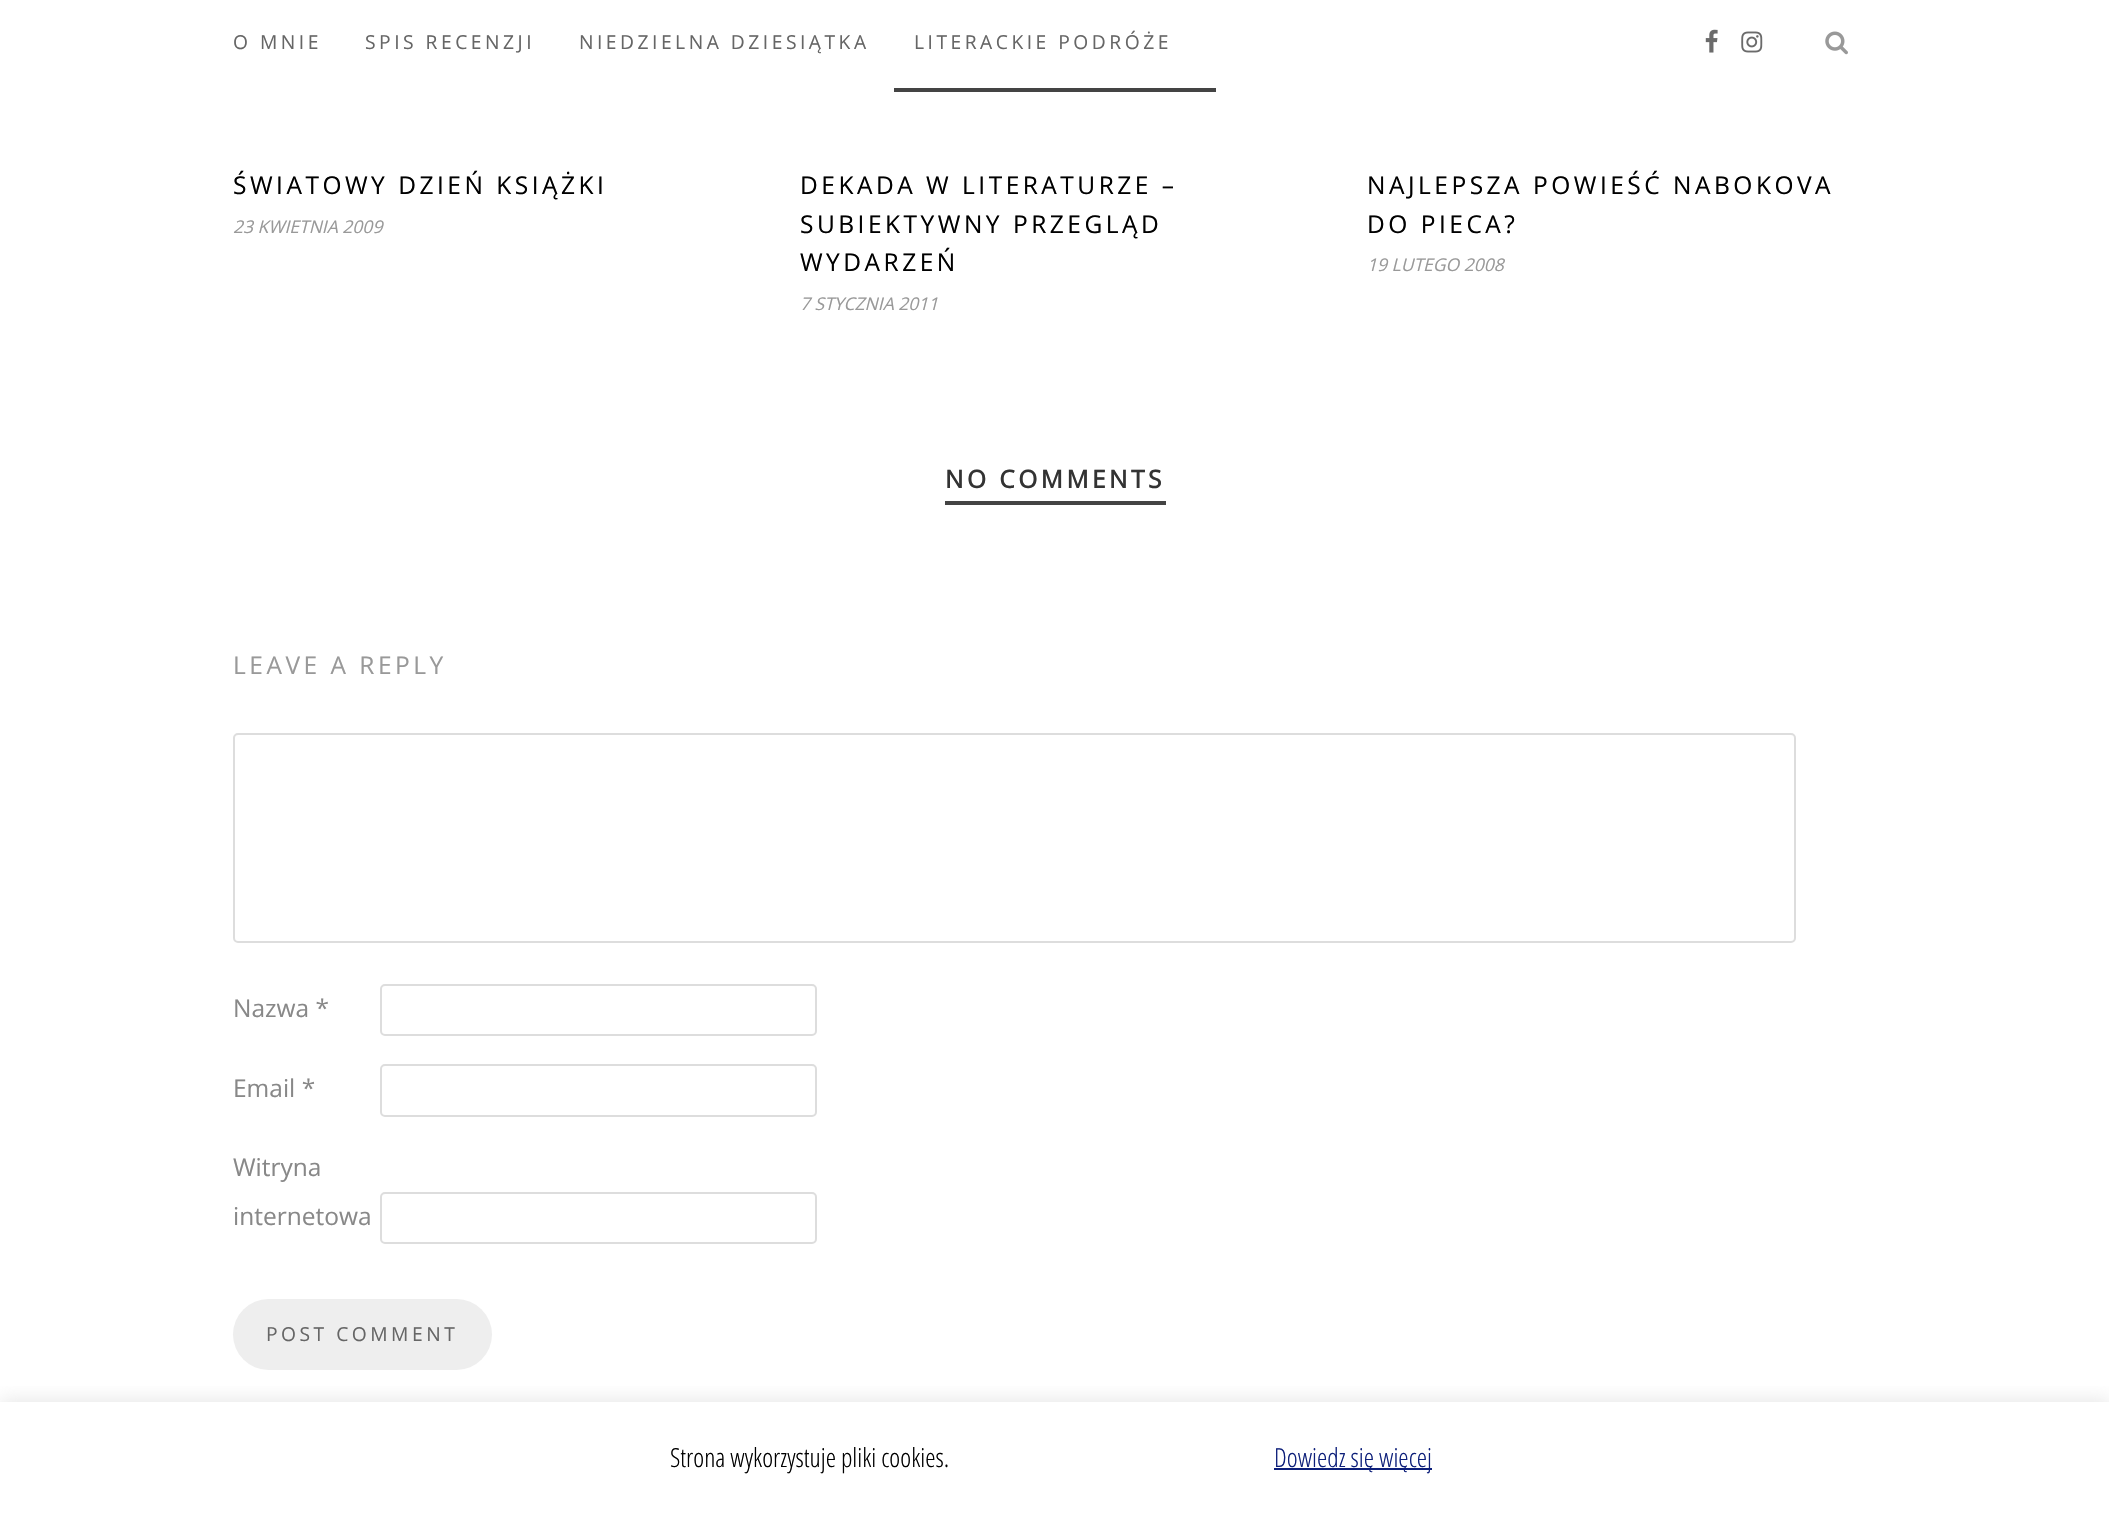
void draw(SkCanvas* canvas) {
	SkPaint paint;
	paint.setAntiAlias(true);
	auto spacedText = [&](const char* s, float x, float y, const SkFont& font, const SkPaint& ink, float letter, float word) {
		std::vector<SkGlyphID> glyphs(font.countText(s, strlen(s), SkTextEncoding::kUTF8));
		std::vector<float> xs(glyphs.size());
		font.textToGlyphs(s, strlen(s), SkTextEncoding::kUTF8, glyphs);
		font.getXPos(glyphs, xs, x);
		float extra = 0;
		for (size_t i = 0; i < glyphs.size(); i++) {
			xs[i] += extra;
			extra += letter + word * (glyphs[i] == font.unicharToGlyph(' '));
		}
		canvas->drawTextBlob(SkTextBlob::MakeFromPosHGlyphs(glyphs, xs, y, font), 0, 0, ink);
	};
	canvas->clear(0xffffffff);
	SkFont f1(fontMgr->matchFamilyStyle("Open Sans", SkFontStyle::Normal()), 19.25);
	f1.setSubpixel(true);
	paint.setColor(0xff666666);
	spacedText("O MNIE", 233, 49, f1, paint, 3.5, 0);
	spacedText("SPIS RECENZJI", 365, 49, f1, paint, 3.5, 0);
	spacedText("NIEDZIELNA DZIESIĄTKA", 579, 49, f1, paint, 3.5, 0);
	spacedText("LITERACKIE PODRÓŻE", 914, 49, f1, paint, 3.5, 0);
	canvas->drawImageRect(SkImages::DeferredFromEncodedData(SkData::MakeFromFileName("img1.png")), SkRect::MakeXYWH(1705, 29, 13, 24), SkSamplingOptions());
	canvas->drawImageRect(SkImages::DeferredFromEncodedData(SkData::MakeFromFileName("img2.png")), SkRect::MakeXYWH(1741, 31, 22, 22), SkSamplingOptions());
	canvas->drawImageRect(SkImages::DeferredFromEncodedData(SkData::MakeFromFileName("img3.png")), SkRect::MakeXYWH(1825, 31, 23, 24), SkSamplingOptions());
	paint.setColor(0xff444444);
	canvas->drawRect(SkRect::MakeXYWH(894, 88, 322, 4), paint);
	SkFont f2(fontMgr->matchFamilyStyle("Open Sans", SkFontStyle::Normal()), 24.5);
	f2.setSubpixel(true);
	paint.setColor(0xff000000);
	spacedText("ŚWIATOWY DZIEŃ KSIĄŻKI", 233, 194, f2, paint, 3.5, 0);
	SkFont f3(fontMgr->matchFamilyStyle("Open Sans", SkFontStyle::Italic()), 17.5);
	f3.setSubpixel(true);
	paint.setColor(0xff999999);
	canvas->drawString("23 KWIETNIA 2009", 233, 233, f3, paint);
	paint.setColor(0xff000000);
	spacedText("DEKADA W LITERATURZE –", 800, 194, f2, paint, 3.5, 0);
	spacedText("SUBIEKTYWNY PRZEGLĄD", 800, 233, f2, paint, 3.5, 0);
	spacedText("WYDARZEŃ", 800, 271, f2, paint, 3.5, 0);
	paint.setColor(0xff999999);
	canvas->drawString("7 STYCZNIA 2011", 800, 310, f3, paint);
	paint.setColor(0xff000000);
	spacedText("NAJLEPSZA POWIEŚĆ NABOKOVA", 1367, 194, f2, paint, 3.5, 0);
	spacedText("DO PIECA?", 1367, 233, f2, paint, 3.5, 0);
	paint.setColor(0xff999999);
	canvas->drawString("19 LUTEGO 2008", 1367, 271, f3, paint);
	paint.setColor(0xff444444);
	canvas->drawRect(SkRect::MakeXYWH(945, 501, 221, 4), paint);
	SkFont f4(fontMgr->matchFamilyStyle("Open Sans", SkFontStyle::Bold()), 24.5);
	f4.setSubpixel(true);
	paint.setColor(0xff333333);
	spacedText("NO COMMENTS", 945, 488, f4, paint, 3.5, 0);
	paint.setColor(0xff999999);
	spacedText("LEAVE A REPLY", 233, 674, f2, paint, 3.5, 0);
	paint.setStroke(true);
	paint.setStrokeWidth(2);
	paint.setColor(0xffdddddd);
	canvas->drawRoundRect(SkRect::MakeXYWH(234, 734, 1561, 208), 4, 4, paint);
	paint.setStroke(false);
	paint.setColor(0xff888888);
	canvas->drawString("Nazwa *", 233, 1017, f2, paint);
	paint.setStroke(true);
	paint.setColor(0xffdddddd);
	canvas->drawRoundRect(SkRect::MakeXYWH(381, 985, 435, 50), 4, 4, paint);
	paint.setStroke(false);
	paint.setColor(0xff888888);
	canvas->drawString("Email *", 233, 1097, f2, paint);
	paint.setStroke(true);
	paint.setColor(0xffdddddd);
	canvas->drawRoundRect(SkRect::MakeXYWH(381, 1065, 435, 51), 4, 4, paint);
	paint.setStroke(false);
	paint.setColor(0xff888888);
	canvas->drawString("Witryna", 233, 1176, f2, paint);
	canvas->drawString("internetowa", 233, 1225, f2, paint);
	paint.setStroke(true);
	paint.setColor(0xffdddddd);
	canvas->drawRoundRect(SkRect::MakeXYWH(381, 1193, 435, 50), 4, 4, paint);
	paint.setStroke(false);
	paint.setColor(0xffeeeeee);
	canvas->drawRoundRect(SkRect::MakeXYWH(233, 1299, 259, 71), 35.5, 35.5, paint);
	paint.setColor(0xff666666);
	spacedText("POST COMMENT", 266, 1341, f1, paint, 3.5, 0);
	canvas->save();
	canvas->clipRect(SkRect::MakeXYWH(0, 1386, 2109, 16));
	paint.setColor(0x4dacabab);
	paint.setMaskFilter(SkMaskFilter::MakeBlur(kNormal_SkBlurStyle, 9));
	canvas->drawRect(SkRect::MakeXYWH(0, 1400, 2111, 114), paint);
	paint.setMaskFilter(nullptr);
	canvas->restore();
	SkFont f5(fontMgr->matchFamilyStyle("Open Sans Condensed", SkFontStyle(300, SkFontStyle::kNormal_Width, SkFontStyle::kUpright_Slant)), 26.25);
	f5.setSubpixel(true);
	paint.setColor(0xff000000);
	canvas->drawString("Strona wykorzystuje pliki cookies.", 670, 1467, f5, paint);
	paint.setColor(0xff0d1f7a);
	canvas->drawRect(SkRect::MakeXYWH(1274, 1468, 158, 2), paint);
	canvas->drawString("Dowiedz się więcej", 1274, 1467, f5, paint);
}
